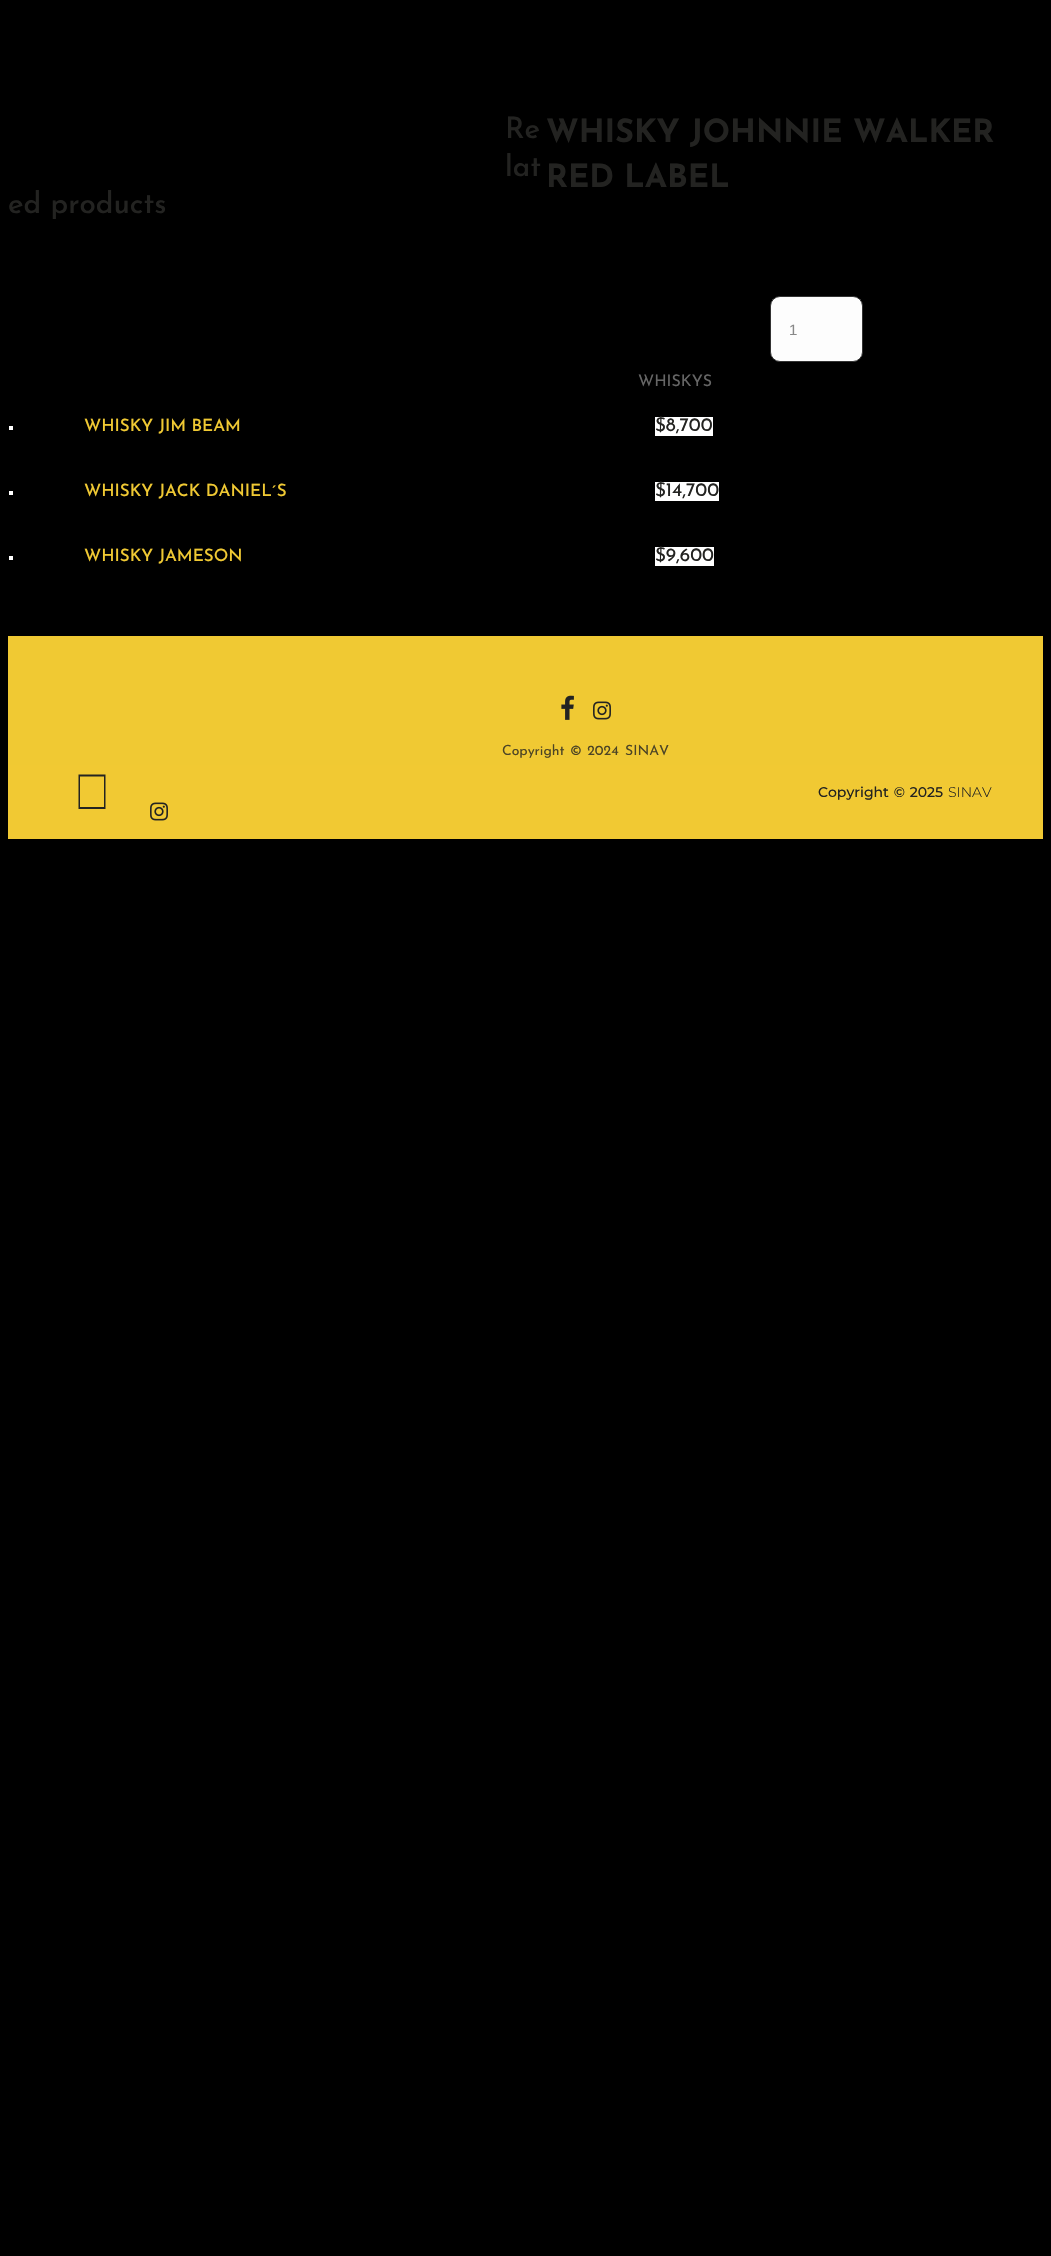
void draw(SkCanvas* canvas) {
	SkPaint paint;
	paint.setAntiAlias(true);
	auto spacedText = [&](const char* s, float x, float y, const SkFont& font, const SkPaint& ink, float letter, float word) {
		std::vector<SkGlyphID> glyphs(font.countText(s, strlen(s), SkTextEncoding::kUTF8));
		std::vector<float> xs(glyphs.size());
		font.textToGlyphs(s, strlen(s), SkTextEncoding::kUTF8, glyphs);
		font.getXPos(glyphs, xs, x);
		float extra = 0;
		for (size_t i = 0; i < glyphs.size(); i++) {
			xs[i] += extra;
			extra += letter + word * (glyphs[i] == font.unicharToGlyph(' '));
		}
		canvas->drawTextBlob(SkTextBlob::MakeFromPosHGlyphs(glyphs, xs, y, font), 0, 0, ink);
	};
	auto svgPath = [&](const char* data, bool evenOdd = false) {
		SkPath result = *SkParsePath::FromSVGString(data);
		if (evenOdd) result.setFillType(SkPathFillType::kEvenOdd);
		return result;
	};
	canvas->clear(0xff000000);
	SkFont f1(fontMgr->matchFamilyStyle("Josefin Sans", SkFontStyle(500, SkFontStyle::kNormal_Width, SkFontStyle::kUpright_Slant)), 29.5);
	f1.setSubpixel(true);
	paint.setColor(0xff232321);
	canvas->drawString("Re", 505, 138, f1, paint);
	canvas->drawString("lat", 505, 176, f1, paint);
	canvas->drawString("ed products", 8, 213, f1, paint);
	paint.setColor(0xffffffff);
	canvas->drawRect(SkRect::MakeXYWH(9, 426, 4, 4), paint);
	SkFont f2(fontMgr->matchFamilyStyle("Josefin Sans", SkFontStyle(500, SkFontStyle::kNormal_Width, SkFontStyle::kUpright_Slant)), 17);
	f2.setSubpixel(true);
	paint.setColor(0xfff0c933);
	canvas->drawString("WHISKY JIM BEAM", 84, 431, f2, paint);
	paint.setColor(0xffffffff);
	canvas->drawRect(SkRect::MakeXYWH(655, 417, 58, 19), paint);
	SkFont f3(fontMgr->matchFamilyStyle("Josefin Sans", SkFontStyle::Normal()), 19);
	f3.setSubpixel(true);
	paint.setColor(0xff232321);
	canvas->drawString("$8,700", 655, 431, f3, paint);
	paint.setColor(0xffffffff);
	canvas->drawRect(SkRect::MakeXYWH(9, 491, 4, 4), paint);
	paint.setColor(0xfff0c933);
	canvas->drawString("WHISKY JACK DANIEL´S", 84, 496, f2, paint);
	paint.setColor(0xffffffff);
	canvas->drawRect(SkRect::MakeXYWH(655, 482, 64, 19), paint);
	paint.setColor(0xff232321);
	canvas->drawString("$14,700", 655, 496, f3, paint);
	paint.setColor(0xffffffff);
	canvas->drawRect(SkRect::MakeXYWH(9, 556, 4, 4), paint);
	paint.setColor(0xfff0c933);
	canvas->drawString("WHISKY JAMESON", 84, 561, f2, paint);
	paint.setColor(0xffffffff);
	canvas->drawRect(SkRect::MakeXYWH(655, 547, 59, 19), paint);
	paint.setColor(0xff232321);
	canvas->drawString("$9,600", 655, 561, f3, paint);
	SkFont f4(fontMgr->matchFamilyStyle("Josefin Sans", SkFontStyle::Bold()), 32);
	f4.setSubpixel(true);
	canvas->drawString("WHISKY JOHNNIE WALKER", 546, 142, f4, paint);
	canvas->drawString("RED LABEL", 546, 187, f4, paint);
	paint.setColor(0xfffdfdfd);
	canvas->drawRoundRect(SkRect::MakeXYWH(770.5, 296.5, 92, 65), 9.5, 9.5, paint);
	paint.setStroke(true);
	paint.setStrokeWidth(1);
	paint.setColor(0xff333333);
	canvas->drawRoundRect(SkRect::MakeXYWH(770.5, 296.5, 92, 65), 9.5, 9.5, paint);
	SkFont f5(fontMgr->matchFamilyStyle("Liberation Sans", SkFontStyle::Normal()), 15);
	f5.setSubpixel(true);
	paint.setStroke(false);
	paint.setColor(0xff888888);
	canvas->drawString("1", 789, 335, f5, paint);
	SkFont f6(fontMgr->matchFamilyStyle("Josefin Sans", SkFontStyle::Normal()), 16);
	f6.setSubpixel(true);
	paint.setColor(0xff666666);
	canvas->drawString("WHISKYS", 638, 386, f6, paint);
	paint.setColor(0xfff0c933);
	canvas->drawRect(SkRect::MakeXYWH(8, 636, 1035, 129), paint);
	canvas->drawImageRect(SkImages::DeferredFromEncodedData(SkData::MakeFromFileName("img1.png")), SkRect::MakeXYWH(561, 695, 13, 25), SkSamplingOptions());
	canvas->drawImageRect(SkImages::DeferredFromEncodedData(SkData::MakeFromFileName("img2.png")), SkRect::MakeXYWH(593, 701, 18, 19), SkSamplingOptions());
	SkFont f7(fontMgr->matchFamilyStyle("Josefin Sans", SkFontStyle::Normal()), 14);
	f7.setSubpixel(true);
	paint.setColor(0xff4c4425);
	spacedText("Copyright © 2024", 502, 755, f7, paint, 0, 1);
	canvas->drawString("SINAV", 625, 755, f7, paint);
	paint.setColor(0xfff1c933);
	canvas->drawRect(SkRect::MakeXYWH(8, 765, 1035, 74), paint);
	paint.setColor(0xff232321);
	canvas->drawPath(svgPath("M78.5 774.5H105.5V809H78.5ZM80 776.5V807H104V776.5Z"), paint);
	canvas->drawImageRect(SkImages::DeferredFromEncodedData(SkData::MakeFromFileName("img3.png")), SkRect::MakeXYWH(150, 802, 18, 19), SkSamplingOptions());
	SkFont f8(fontMgr->matchFamilyStyle("Montserrat", SkFontStyle(500, SkFontStyle::kNormal_Width, SkFontStyle::kUpright_Slant)), 14);
	f8.setSubpixel(true);
	spacedText("Copyright © 2025", 818, 797, f8, paint, 0, 1);
	SkFont f9(fontMgr->matchFamilyStyle("Montserrat", SkFontStyle(300, SkFontStyle::kNormal_Width, SkFontStyle::kUpright_Slant)), 14);
	f9.setSubpixel(true);
	canvas->drawString("SINAV", 948, 797, f9, paint);
}
